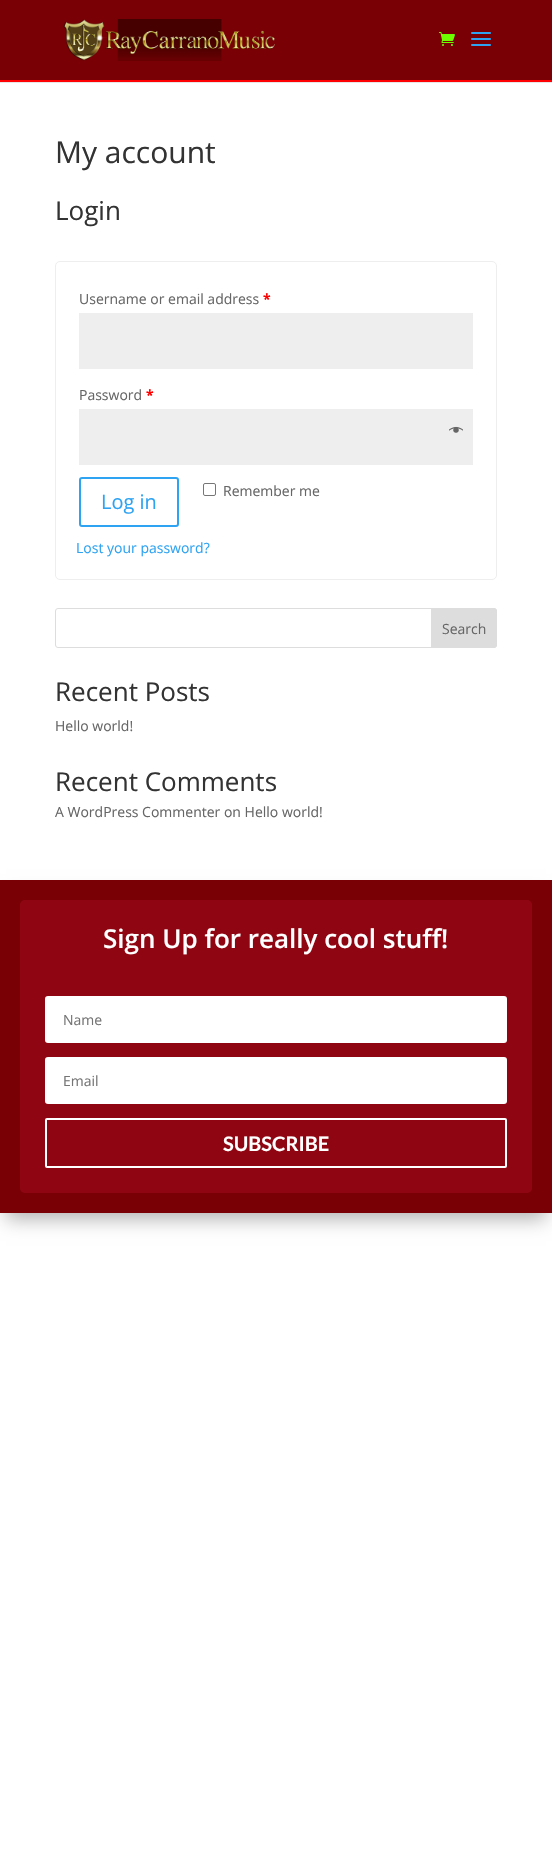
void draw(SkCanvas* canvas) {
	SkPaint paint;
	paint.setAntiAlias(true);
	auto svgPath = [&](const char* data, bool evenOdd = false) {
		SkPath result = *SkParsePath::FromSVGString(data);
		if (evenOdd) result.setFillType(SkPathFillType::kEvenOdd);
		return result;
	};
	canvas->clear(0xffffffff);
	paint.setColor(0xffe6e6e6);
	canvas->drawRect(SkRect::MakeXYWH(0, 82, 552, 1), paint);
	paint.setColor(0xff790005);
	canvas->drawRect(SkRect::MakeXYWH(0, 0, 552, 80), paint);
	paint.setColor(0xfffe0105);
	canvas->drawRect(SkRect::MakeXYWH(0, 80, 552, 2), paint);
	canvas->drawImageRect(SkImages::DeferredFromEncodedData(SkData::MakeFromFileName("img1.png")), SkRect::MakeXYWH(63, 19, 212, 42), SkSamplingOptions());
	canvas->drawImageRect(SkImages::DeferredFromEncodedData(SkData::MakeFromFileName("img2.png")), SkRect::MakeXYWH(439, 32, 16, 14), SkSamplingOptions());
	canvas->drawImageRect(SkImages::DeferredFromEncodedData(SkData::MakeFromFileName("img3.png")), SkRect::MakeXYWH(471, 32, 20, 14), SkSamplingOptions());
	SkFont f1(fontMgr->matchFamilyStyle("Open Sans", SkFontStyle::Normal()), 30);
	f1.setSubpixel(true);
	paint.setColor(0xff333333);
	canvas->drawString("My account", 55, 163, f1, paint);
	SkFont f2(fontMgr->matchFamilyStyle("Open Sans", SkFontStyle::Normal()), 26);
	f2.setSubpixel(true);
	canvas->drawString("Login", 55, 220, f2, paint);
	paint.setStroke(true);
	paint.setStrokeWidth(1);
	paint.setColor(0xffeeeeee);
	canvas->drawRoundRect(SkRect::MakeXYWH(55.5, 261.5, 441, 318), 4.5, 4.5, paint);
	SkFont f3(fontMgr->matchFamilyStyle("Open Sans", SkFontStyle::Normal()), 14);
	f3.setSubpixel(true);
	paint.setStroke(false);
	paint.setColor(0xff666666);
	canvas->drawString("Username or email address", 79, 304, f3, paint);
	SkFont f4(fontMgr->matchFamilyStyle("Open Sans", SkFontStyle::Bold()), 14);
	f4.setSubpixel(true);
	paint.setColor(0xffff0000);
	canvas->drawString("*", 263, 304, f4, paint);
	paint.setColor(0xffeeeeee);
	canvas->drawRect(SkRect::MakeXYWH(79, 313, 394, 56), paint);
	paint.setColor(0xff666666);
	canvas->drawString("Password", 79, 400, f3, paint);
	paint.setColor(0xffff0000);
	canvas->drawString("*", 146, 400, f4, paint);
	paint.setColor(0xffeeeeee);
	canvas->drawRect(SkRect::MakeXYWH(79, 409, 394, 56), paint);
	canvas->drawImageRect(SkImages::DeferredFromEncodedData(SkData::MakeFromFileName("img4.png")), SkRect::MakeXYWH(449, 426, 14, 7), SkSamplingOptions());
	paint.setStroke(true);
	paint.setColor(0xff767676);
	canvas->drawRoundRect(SkRect::MakeXYWH(203.5, 483.5, 12, 12), 1.5, 1.5, paint);
	paint.setStroke(false);
	paint.setColor(0xff666666);
	canvas->drawString("Remember me", 223, 496, f3, paint);
	paint.setStroke(true);
	paint.setStrokeWidth(2);
	paint.setColor(0xff2ea3f2);
	canvas->drawRoundRect(SkRect::MakeXYWH(80, 478, 98, 48), 2, 2, paint);
	SkFont f5(fontMgr->matchFamilyStyle("Open Sans", SkFontStyle::Normal()), 20);
	f5.setSubpixel(true);
	paint.setStroke(false);
	canvas->drawString("Log in", 101, 509, f5, paint);
	canvas->drawString("Lost your password?", 76, 553, f3, paint);
	paint.setStroke(true);
	paint.setStrokeWidth(1);
	paint.setColor(0xffdddddd);
	canvas->drawRoundRect(SkRect::MakeXYWH(55.5, 608.5, 441, 39), 2.5, 2.5, paint);
	paint.setStroke(false);
	canvas->drawPath(svgPath("M431.5 608.5H494C495.5 608.5 496.5 609.5 496.5 611V645C496.5 646.5 495.5 647.5 494 647.5H431.5Z"), paint);
	paint.setStroke(true);
	canvas->drawPath(svgPath("M431.5 608.5H494C495.5 608.5 496.5 609.5 496.5 611V645C496.5 646.5 495.5 647.5 494 647.5H431.5Z"), paint);
	paint.setStroke(false);
	paint.setColor(0xff666666);
	canvas->drawString("Search", 442, 634, f3, paint);
	paint.setColor(0xff333333);
	canvas->drawString("Recent Posts", 55, 701, f2, paint);
	paint.setColor(0xff666666);
	canvas->drawString("Hello world!", 55, 731, f3, paint);
	paint.setColor(0xff333333);
	canvas->drawString("Recent Comments", 55, 791, f2, paint);
	paint.setColor(0xff666666);
	canvas->drawString("A WordPress Commenter on Hello world!", 55, 817, f3, paint);
	paint.setColor(0x4d000000);
	paint.setMaskFilter(SkMaskFilter::MakeBlur(kNormal_SkBlurStyle, 9));
	canvas->drawRect(SkRect::MakeXYWH(6, 896, 540, 323), paint);
	paint.setMaskFilter(nullptr);
	paint.setColor(0xff790005);
	canvas->drawRect(SkRect::MakeXYWH(0, 880, 552, 333), paint);
	paint.setColor(0xff8f0612);
	canvas->drawRoundRect(SkRect::MakeXYWH(20, 900, 512, 293), 5, 5, paint);
	SkFont f6(fontMgr->matchFamilyStyle("Open Sans", SkFontStyle(600, SkFontStyle::kNormal_Width, SkFontStyle::kUpright_Slant)), 26);
	f6.setSubpixel(true);
	paint.setColor(0xffffffff);
	canvas->drawString("Sign Up for really cool stuff!", 103, 948, f6, paint);
	canvas->drawRoundRect(SkRect::MakeXYWH(45, 996, 462, 47), 3, 3, paint);
	paint.setColor(0xff757575);
	canvas->drawString("Name", 63, 1025, f3, paint);
	paint.setColor(0xffffffff);
	canvas->drawRoundRect(SkRect::MakeXYWH(45, 1057, 462, 47), 3, 3, paint);
	paint.setColor(0xff757575);
	canvas->drawString("Email", 63, 1086, f3, paint);
	paint.setStroke(true);
	paint.setStrokeWidth(2);
	paint.setColor(0xffffffff);
	canvas->drawRoundRect(SkRect::MakeXYWH(46, 1119, 460, 48), 1, 1, paint);
	SkFont f7(fontMgr->matchFamilyStyle("Lato", SkFontStyle::Bold()), 20);
	f7.setSubpixel(true);
	paint.setStroke(false);
	canvas->drawString("SUBSCRIBE", 223, 1151, f7, paint);
}
